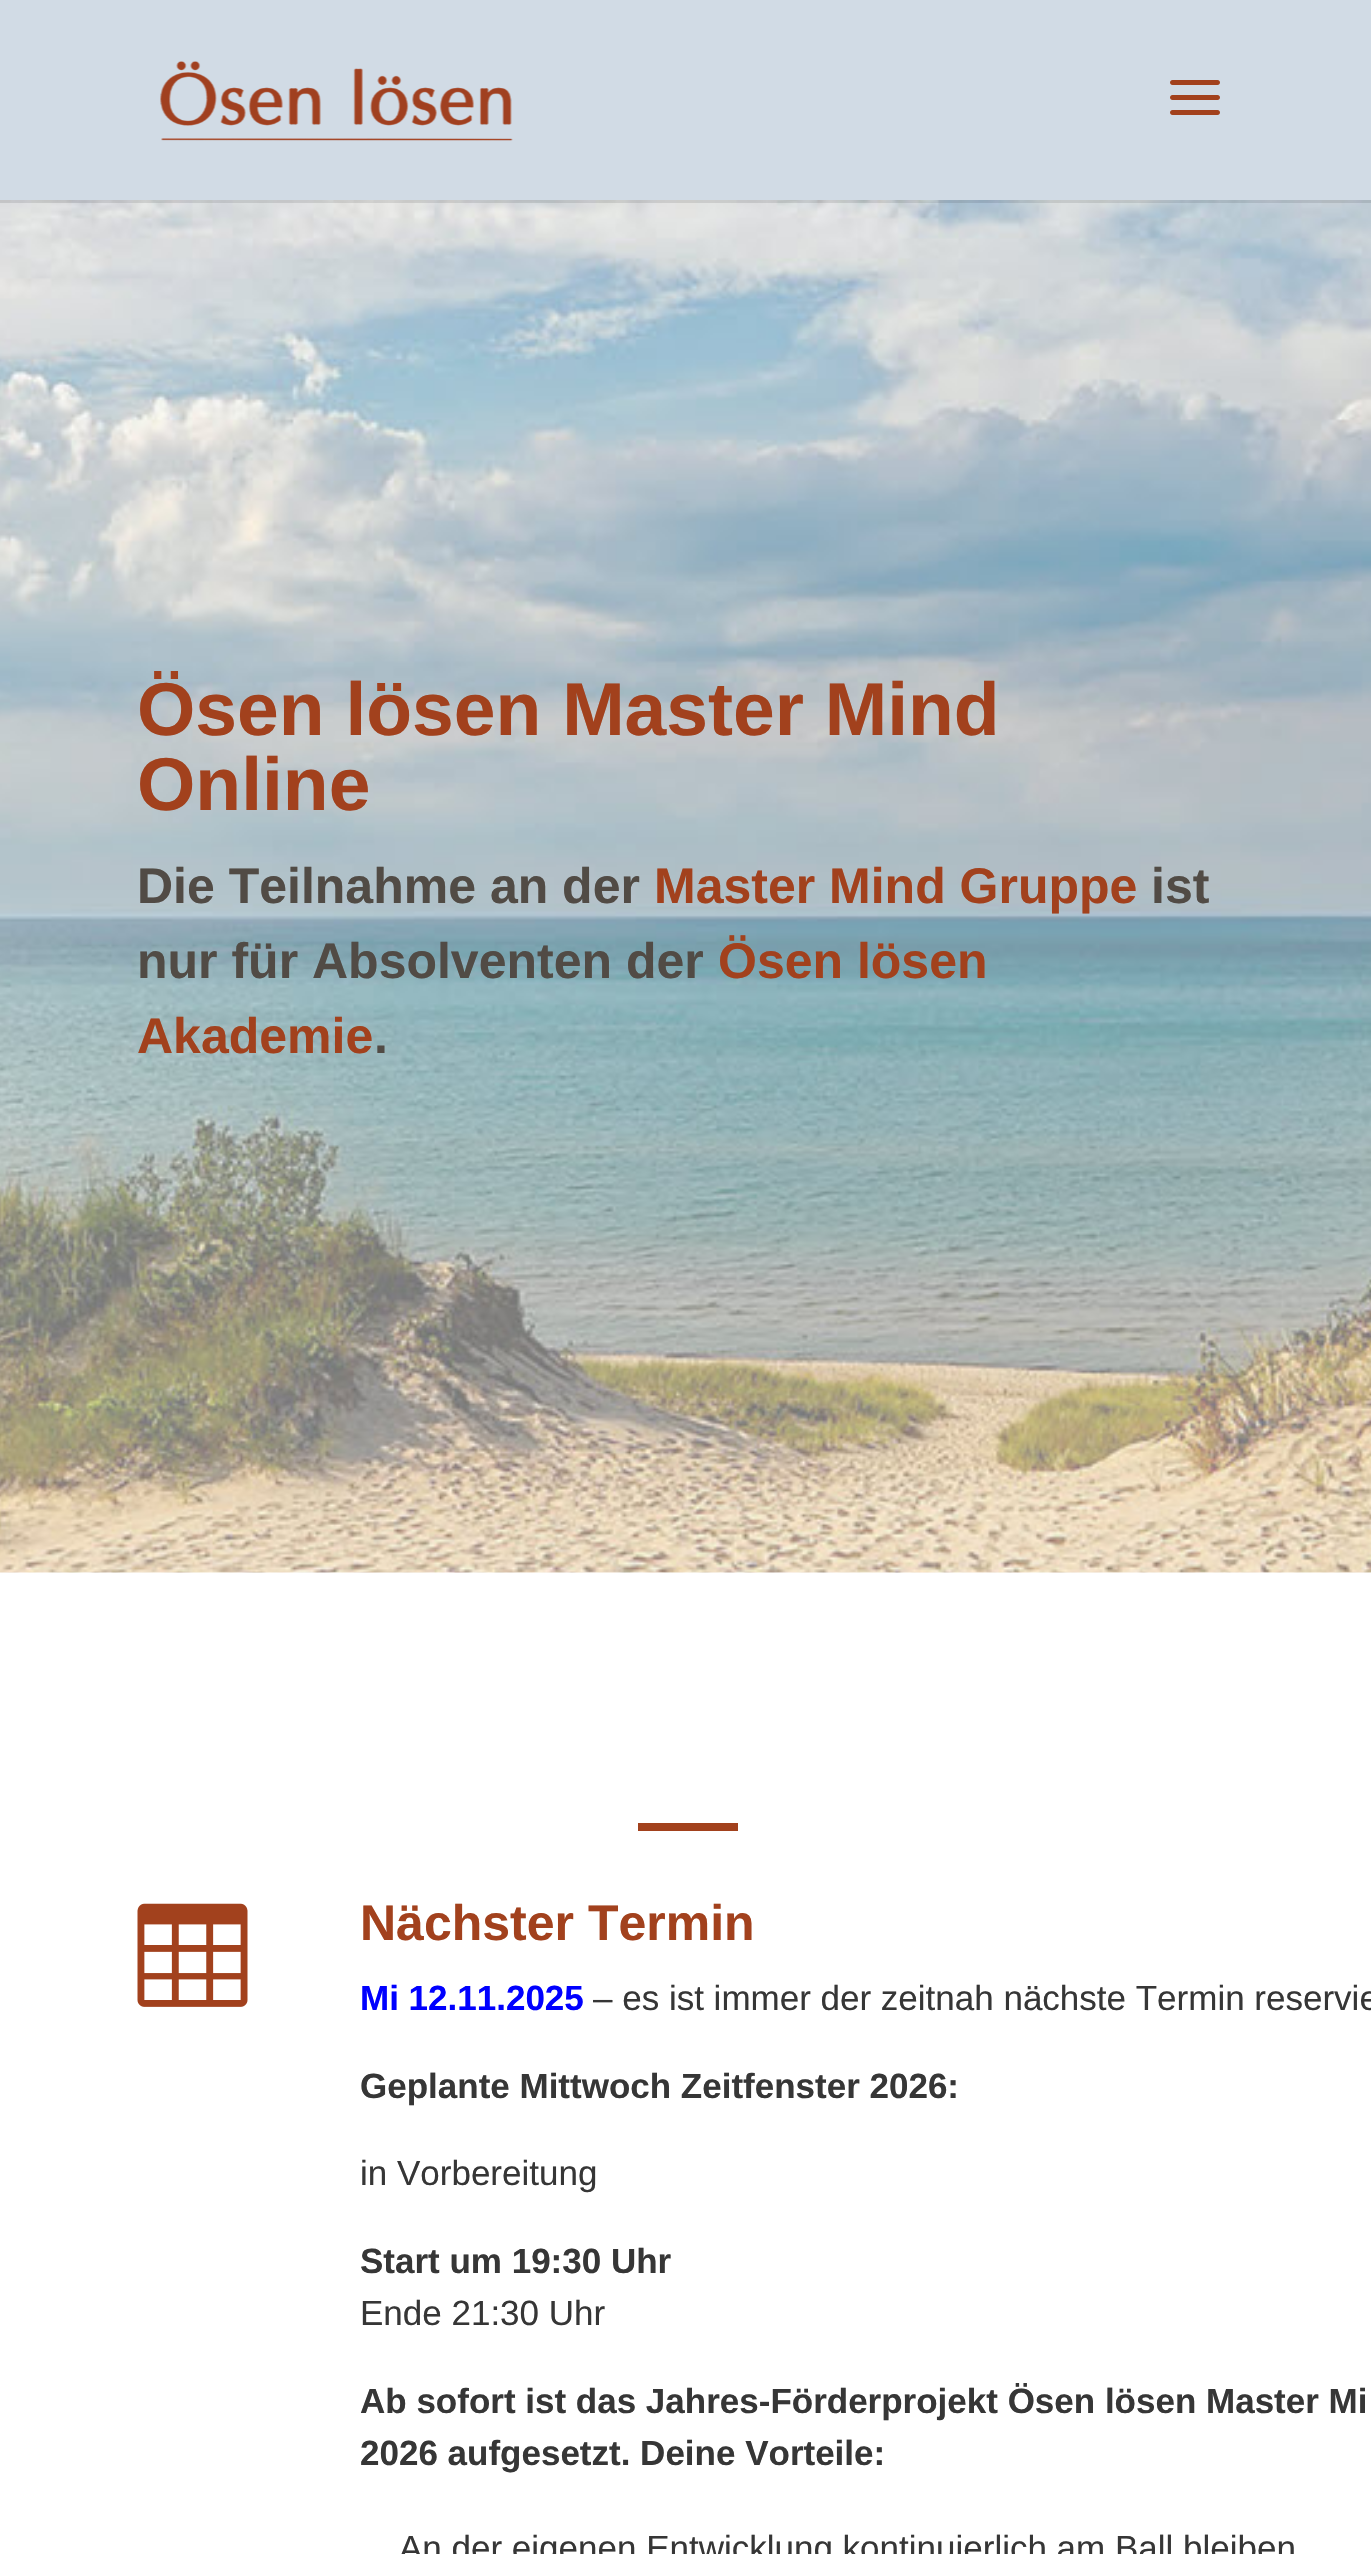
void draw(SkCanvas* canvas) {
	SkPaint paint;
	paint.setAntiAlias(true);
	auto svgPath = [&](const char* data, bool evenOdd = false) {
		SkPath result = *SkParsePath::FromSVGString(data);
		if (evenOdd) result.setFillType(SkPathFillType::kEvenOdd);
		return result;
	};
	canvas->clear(0xffffffff);
	canvas->drawImageRect(SkImages::DeferredFromEncodedData(SkData::MakeFromFileName("img3.png")), SkRect::MakeXYWH(0, 200, 1371, 1373), SkSamplingOptions());
	paint.setColor(0x1a000000);
	canvas->drawPath(svgPath("M0 200V203H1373V3H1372V200Z"), paint);
	paint.setColor(0xffd1dbe5);
	canvas->drawRect(SkRect::MakeXYWH(0, 0, 1371, 200), paint);
	canvas->drawImageRect(SkImages::DeferredFromEncodedData(SkData::MakeFromFileName("img1.png")), SkRect::MakeXYWH(160, 61, 353, 80), SkSamplingOptions());
	canvas->drawImageRect(SkImages::DeferredFromEncodedData(SkData::MakeFromFileName("img2.png")), SkRect::MakeXYWH(1170, 80, 50, 35), SkSamplingOptions());
	SkFont f1(fontMgr->matchFamilyStyle("Liberation Sans", SkFontStyle::Bold()), 75);
	f1.setSubpixel(true);
	paint.setColor(0xffa2411d);
	canvas->drawString("Ösen lösen Master Mind", 137, 735, f1, paint);
	canvas->drawString("Online", 137, 810, f1, paint);
	SkFont f2(fontMgr->matchFamilyStyle("Liberation Sans", SkFontStyle::Bold()), 50);
	f2.setSubpixel(true);
	paint.setColor(0xff514b45);
	canvas->drawString("Die Teilnahme an der", 137, 903, f2, paint);
	paint.setColor(0xffa2411d);
	canvas->drawString("Master Mind Gruppe", 654, 903, f2, paint);
	paint.setColor(0xff514b45);
	canvas->drawString("ist", 1151, 903, f2, paint);
	canvas->drawString("nur für Absolventen der", 137, 978, f2, paint);
	paint.setColor(0xffa2411d);
	canvas->drawString("Ösen lösen", 718, 978, f2, paint);
	canvas->drawString("Akademie", 137, 1053, f2, paint);
	paint.setColor(0xff514b45);
	canvas->drawString(".", 374, 1053, f2, paint);
	paint.setColor(0xffa2411d);
	canvas->drawRect(SkRect::MakeXYWH(638, 1823, 100, 8), paint);
	canvas->drawImageRect(SkImages::DeferredFromEncodedData(SkData::MakeFromFileName("img4.png")), SkRect::MakeXYWH(137, 1903, 111, 104), SkSamplingOptions());
	canvas->drawString("Nächster Termin", 360, 1940, f2, paint);
	SkFont f3(fontMgr->matchFamilyStyle("Liberation Sans", SkFontStyle::Bold()), 35);
	f3.setSubpixel(true);
	paint.setColor(0xff0000ff);
	canvas->drawString("Mi 12.11.2025", 360, 2010, f3, paint);
	SkFont f4(fontMgr->matchFamilyStyle("Liberation Sans", SkFontStyle::Normal()), 35);
	f4.setSubpixel(true);
	paint.setColor(0xff363636);
	canvas->drawString("– es ist immer der zeitnah nächste Termin reservie", 593, 2010, f4, paint);
	canvas->drawString("Geplante Mittwoch Zeitfenster 2026:", 360, 2098, f3, paint);
	canvas->drawString("in Vorbereitung", 360, 2185, f4, paint);
	canvas->drawString("Start um 19:30 Uhr", 360, 2273, f3, paint);
	canvas->drawString("Ende 21:30 Uhr", 360, 2325, f4, paint);
	canvas->drawString("Ab sofort ist das Jahres-Förderprojekt Ösen lösen Master Mi", 360, 2413, f3, paint);
	canvas->drawString("2026 aufgesetzt. Deine Vorteile:", 360, 2465, f3, paint);
	canvas->drawString("An der eigenen Entwicklung kontinuierlich am Ball bleiben", 399, 2560, f4, paint);
}
